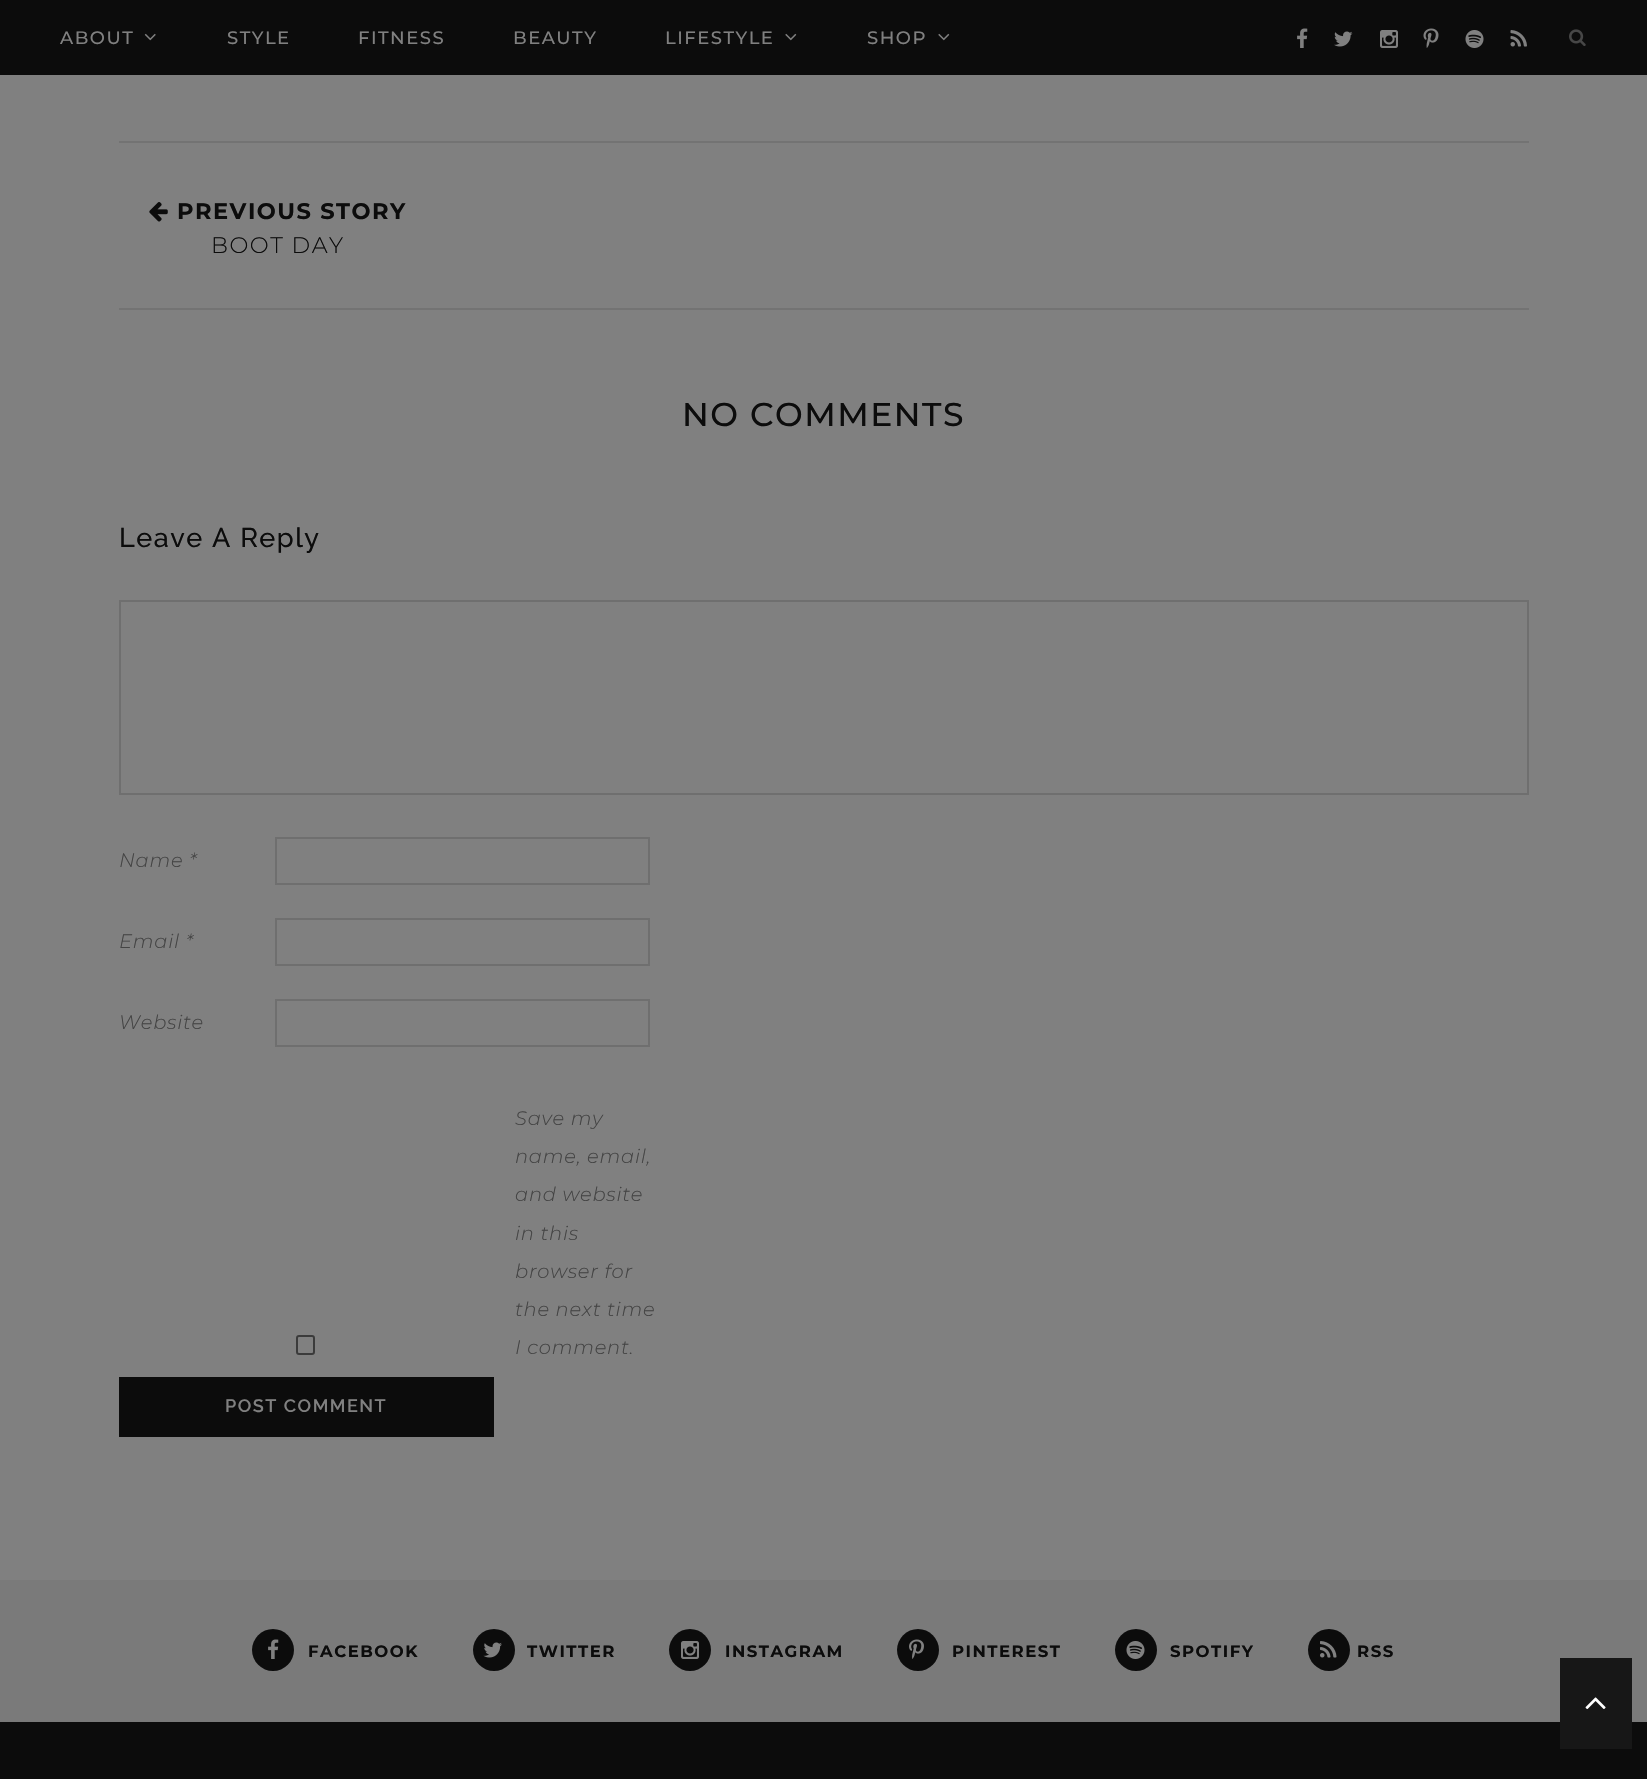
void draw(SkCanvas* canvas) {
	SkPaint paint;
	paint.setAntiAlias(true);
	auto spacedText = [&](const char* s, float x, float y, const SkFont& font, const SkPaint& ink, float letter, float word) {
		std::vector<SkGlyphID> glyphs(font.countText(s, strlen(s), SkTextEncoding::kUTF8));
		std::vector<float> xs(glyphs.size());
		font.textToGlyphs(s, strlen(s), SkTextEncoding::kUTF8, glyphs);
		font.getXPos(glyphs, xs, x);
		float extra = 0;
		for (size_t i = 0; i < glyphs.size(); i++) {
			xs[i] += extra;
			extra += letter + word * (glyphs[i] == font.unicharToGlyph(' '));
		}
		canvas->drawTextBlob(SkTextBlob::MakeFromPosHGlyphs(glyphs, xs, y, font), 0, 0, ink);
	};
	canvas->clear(0xff808080);
	paint.setColor(0xff0c0c0c);
	canvas->drawRect(SkRect::MakeXYWH(0, 0, 1647, 75), paint);
	SkFont f1(fontMgr->matchFamilyStyle("Montserrat", SkFontStyle(500, SkFontStyle::kNormal_Width, SkFontStyle::kUpright_Slant)), 18);
	f1.setSubpixel(true);
	paint.setColor(0xff808080);
	spacedText("ABOUT", 60, 44, f1, paint, 1.5, 0);
	canvas->drawImageRect(SkImages::DeferredFromEncodedData(SkData::MakeFromFileName("img1.png")), SkRect::MakeXYWH(144, 33, 12, 8), SkSamplingOptions());
	spacedText("STYLE", 227, 44, f1, paint, 1.5, 0);
	spacedText("FITNESS", 358, 44, f1, paint, 1.5, 0);
	spacedText("BEAUTY", 513, 44, f1, paint, 1.5, 0);
	spacedText("LIFESTYLE", 665, 44, f1, paint, 1.5, 0);
	canvas->drawImageRect(SkImages::DeferredFromEncodedData(SkData::MakeFromFileName("img2.png")), SkRect::MakeXYWH(785, 33, 12, 8), SkSamplingOptions());
	spacedText("SHOP", 867, 44, f1, paint, 1.5, 0);
	canvas->drawImageRect(SkImages::DeferredFromEncodedData(SkData::MakeFromFileName("img2.png")), SkRect::MakeXYWH(938, 33, 12, 8), SkSamplingOptions());
	canvas->drawImageRect(SkImages::DeferredFromEncodedData(SkData::MakeFromFileName("img3.png")), SkRect::MakeXYWH(1297, 28, 11, 20), SkSamplingOptions());
	canvas->drawImageRect(SkImages::DeferredFromEncodedData(SkData::MakeFromFileName("img4.png")), SkRect::MakeXYWH(1334, 31, 19, 16), SkSamplingOptions());
	canvas->drawImageRect(SkImages::DeferredFromEncodedData(SkData::MakeFromFileName("img5.png")), SkRect::MakeXYWH(1380, 30, 18, 18), SkSamplingOptions());
	canvas->drawImageRect(SkImages::DeferredFromEncodedData(SkData::MakeFromFileName("img6.png")), SkRect::MakeXYWH(1423, 28, 16, 20), SkSamplingOptions());
	canvas->drawImageRect(SkImages::DeferredFromEncodedData(SkData::MakeFromFileName("img7.png")), SkRect::MakeXYWH(1465, 30, 19, 18), SkSamplingOptions());
	canvas->drawImageRect(SkImages::DeferredFromEncodedData(SkData::MakeFromFileName("img8.png")), SkRect::MakeXYWH(1510, 30, 17, 17), SkSamplingOptions());
	canvas->drawImageRect(SkImages::DeferredFromEncodedData(SkData::MakeFromFileName("img9.png")), SkRect::MakeXYWH(1569, 29, 17, 17), SkSamplingOptions());
	paint.setColor(0xff737373);
	canvas->drawRect(SkRect::MakeXYWH(119, 141, 1410, 2), paint);
	canvas->drawRect(SkRect::MakeXYWH(119, 308, 1410, 2), paint);
	canvas->drawImageRect(SkImages::DeferredFromEncodedData(SkData::MakeFromFileName("img10.png")), SkRect::MakeXYWH(149, 202, 19, 20), SkSamplingOptions());
	SkFont f2(fontMgr->matchFamilyStyle("Montserrat", SkFontStyle::Bold()), 22.5);
	f2.setSubpixel(true);
	paint.setColor(0xff0c0c0c);
	spacedText("PREVIOUS STORY", 177, 219, f2, paint, 1.5, 0);
	SkFont f3(fontMgr->matchFamilyStyle("Montserrat", SkFontStyle(300, SkFontStyle::kNormal_Width, SkFontStyle::kUpright_Slant)), 22.5);
	f3.setSubpixel(true);
	spacedText("BOOT DAY", 211, 253, f3, paint, 1.5, 0);
	SkFont f4(fontMgr->matchFamilyStyle("Montserrat", SkFontStyle(500, SkFontStyle::kNormal_Width, SkFontStyle::kUpright_Slant)), 33);
	f4.setSubpixel(true);
	spacedText("NO COMMENTS", 682, 426, f4, paint, 1.5, 0);
	SkFont f5(fontMgr->matchFamilyStyle("Raleway", SkFontStyle(500, SkFontStyle::kNormal_Width, SkFontStyle::kUpright_Slant)), 27);
	f5.setSubpixel(true);
	spacedText("Leave A Reply", 119, 547, f5, paint, 1.5, 0);
	paint.setStroke(true);
	paint.setStrokeWidth(2);
	paint.setColor(0xff6f6f6f);
	canvas->drawRect(SkRect::MakeXYWH(120, 601, 1408, 193), paint);
	SkFont f6(fontMgr->matchFamilyStyle("Montserrat", SkFontStyle(300, SkFontStyle::kNormal_Width, SkFontStyle::kItalic_Slant)), 19.5);
	f6.setSubpixel(true);
	paint.setStroke(false);
	paint.setColor(0xff444444);
	spacedText("Name *", 119, 867, f6, paint, 0.75, 0);
	paint.setStroke(true);
	paint.setColor(0xff6f6f6f);
	canvas->drawRect(SkRect::MakeXYWH(276, 838, 373, 46), paint);
	paint.setStroke(false);
	paint.setColor(0xff444444);
	spacedText("Email *", 119, 948, f6, paint, 0.75, 0);
	paint.setStroke(true);
	paint.setColor(0xff6f6f6f);
	canvas->drawRect(SkRect::MakeXYWH(276, 919, 373, 46), paint);
	paint.setStroke(false);
	paint.setColor(0xff444444);
	spacedText("Website", 119, 1029, f6, paint, 0.75, 0);
	paint.setStroke(true);
	paint.setColor(0xff6f6f6f);
	canvas->drawRect(SkRect::MakeXYWH(276, 1000, 373, 46), paint);
	paint.setColor(0xff3b3b3b);
	canvas->drawRoundRect(SkRect::MakeXYWH(297, 1336, 17, 18), 2, 2, paint);
	paint.setStroke(false);
	paint.setColor(0xff444444);
	spacedText("Save my", 515, 1125, f6, paint, 0.75, 0);
	spacedText("name, email,", 515, 1163, f6, paint, 0.75, 0);
	spacedText("and website", 515, 1201, f6, paint, 0.75, 0);
	spacedText("in this", 515, 1240, f6, paint, 0.75, 0);
	spacedText("browser for", 515, 1278, f6, paint, 0.75, 0);
	spacedText("the next time", 515, 1316, f6, paint, 0.75, 0);
	spacedText("I comment.", 515, 1354, f6, paint, 0.75, 0);
	paint.setColor(0xff0c0c0c);
	canvas->drawRect(SkRect::MakeXYWH(119, 1377, 375, 60), paint);
	SkFont f7(fontMgr->matchFamilyStyle("Raleway", SkFontStyle(600, SkFontStyle::kNormal_Width, SkFontStyle::kUpright_Slant)), 18);
	f7.setSubpixel(true);
	paint.setColor(0xff808080);
	spacedText("POST COMMENT", 225, 1412, f7, paint, 1.5, 0);
	paint.setColor(0xff7a7a7a);
	canvas->drawRect(SkRect::MakeXYWH(0, 1580, 1647, 142), paint);
	paint.setColor(0xff0c0c0c);
	canvas->drawCircle(273, 1650, 21, paint);
	canvas->drawImageRect(SkImages::DeferredFromEncodedData(SkData::MakeFromFileName("img3.png")), SkRect::MakeXYWH(268, 1639, 11, 20), SkSamplingOptions());
	SkFont f8(fontMgr->matchFamilyStyle("Montserrat", SkFontStyle::Bold()), 16.5);
	f8.setSubpixel(true);
	spacedText("FACEBOOK", 308, 1657, f8, paint, 1.5, 0);
	canvas->drawCircle(494, 1650, 21, paint);
	canvas->drawImageRect(SkImages::DeferredFromEncodedData(SkData::MakeFromFileName("img11.png")), SkRect::MakeXYWH(483, 1642, 19, 16), SkSamplingOptions());
	spacedText("TWITTER", 527, 1657, f8, paint, 1.5, 0);
	canvas->drawCircle(690, 1650, 21, paint);
	canvas->drawImageRect(SkImages::DeferredFromEncodedData(SkData::MakeFromFileName("img5.png")), SkRect::MakeXYWH(681, 1641, 18, 18), SkSamplingOptions());
	spacedText("INSTAGRAM", 725, 1657, f8, paint, 1.5, 0);
	canvas->drawCircle(918, 1650, 21, paint);
	canvas->drawImageRect(SkImages::DeferredFromEncodedData(SkData::MakeFromFileName("img12.png")), SkRect::MakeXYWH(909, 1639, 15, 20), SkSamplingOptions());
	spacedText("PINTEREST", 952, 1657, f8, paint, 1.5, 0);
	canvas->drawCircle(1136, 1650, 21, paint);
	canvas->drawImageRect(SkImages::DeferredFromEncodedData(SkData::MakeFromFileName("img7.png")), SkRect::MakeXYWH(1126, 1641, 19, 18), SkSamplingOptions());
	spacedText("SPOTIFY", 1170, 1657, f8, paint, 1.5, 0);
	canvas->drawCircle(1329, 1650, 21, paint);
	canvas->drawImageRect(SkImages::DeferredFromEncodedData(SkData::MakeFromFileName("img13.png")), SkRect::MakeXYWH(1320, 1641, 17, 17), SkSamplingOptions());
	spacedText("RSS", 1357, 1657, f8, paint, 1.5, 0);
	canvas->drawRect(SkRect::MakeXYWH(0, 1722, 1647, 57), paint);
	paint.setColor(0xff171717);
	canvas->drawRect(SkRect::MakeXYWH(1560, 1658, 72, 91), paint);
	canvas->drawImageRect(SkImages::DeferredFromEncodedData(SkData::MakeFromFileName("img14.png")), SkRect::MakeXYWH(1585, 1697, 21, 12), SkSamplingOptions());
}
